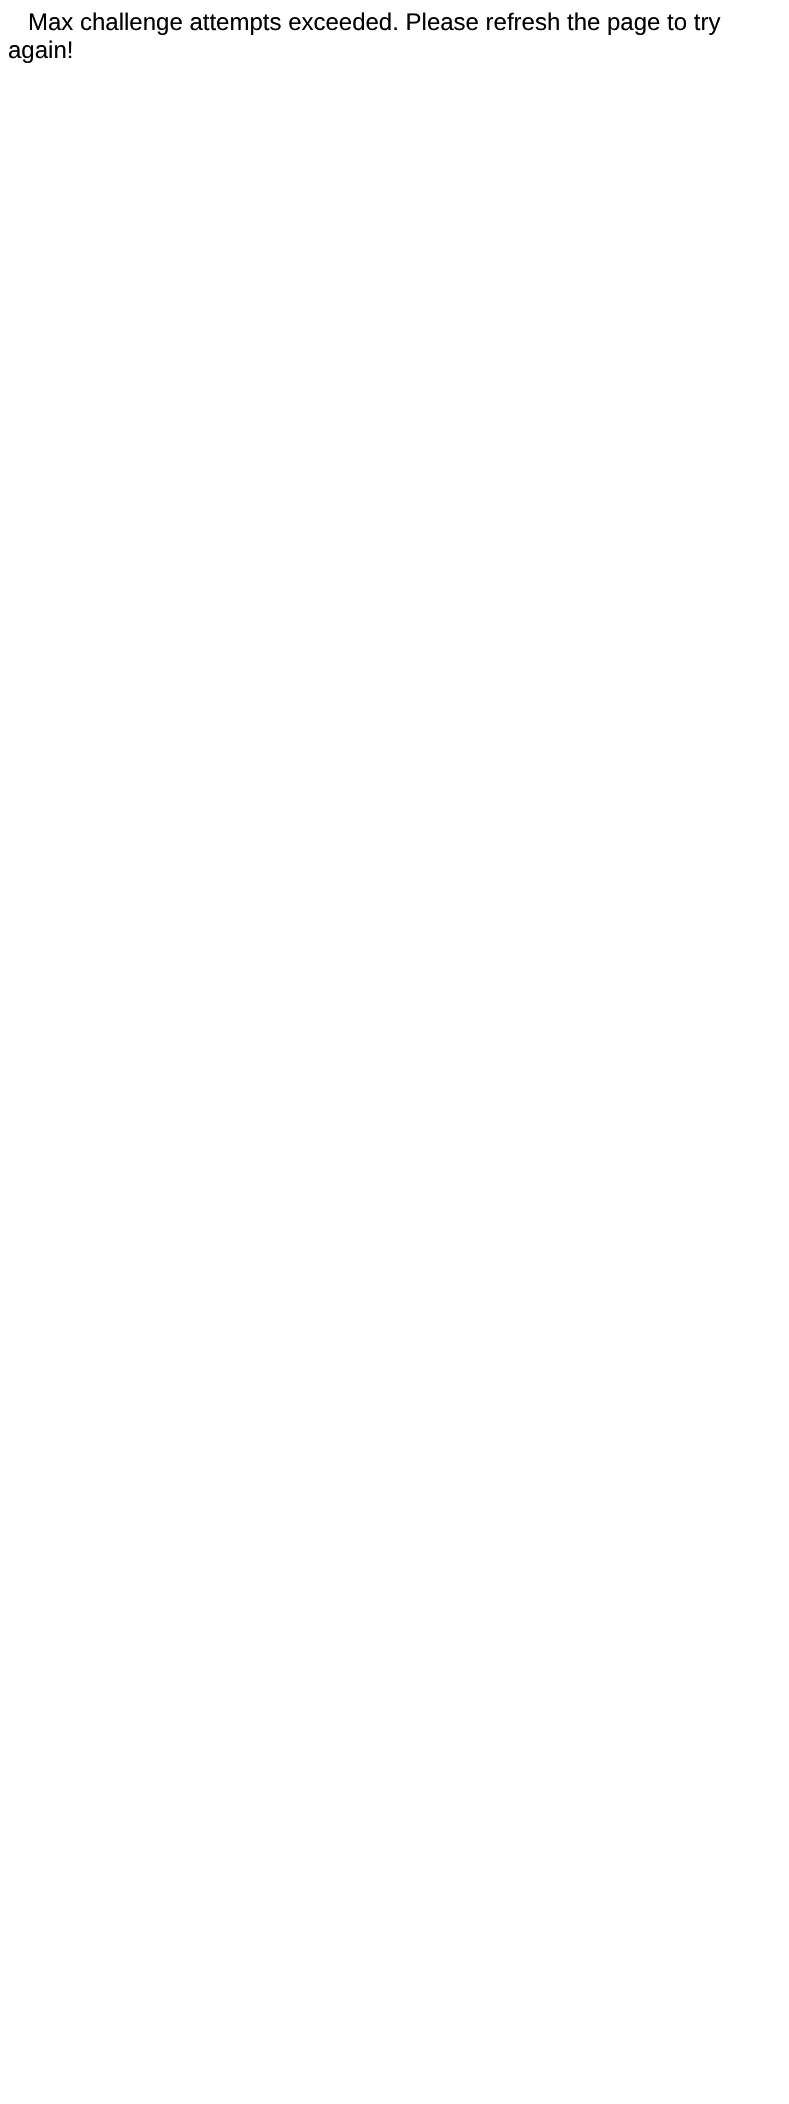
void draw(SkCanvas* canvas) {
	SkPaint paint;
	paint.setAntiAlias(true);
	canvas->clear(0xffffffff);
	SkFont f1(fontMgr->matchFamilyStyle("Liberation Sans", SkFontStyle::Normal()), 24);
	f1.setSubpixel(true);
	paint.setColor(0xff000000);
	canvas->drawString("Max challenge attempts exceeded. Please refresh the page to try", 28, 30, f1, paint);
	canvas->drawString("again!", 8, 58, f1, paint);
}
